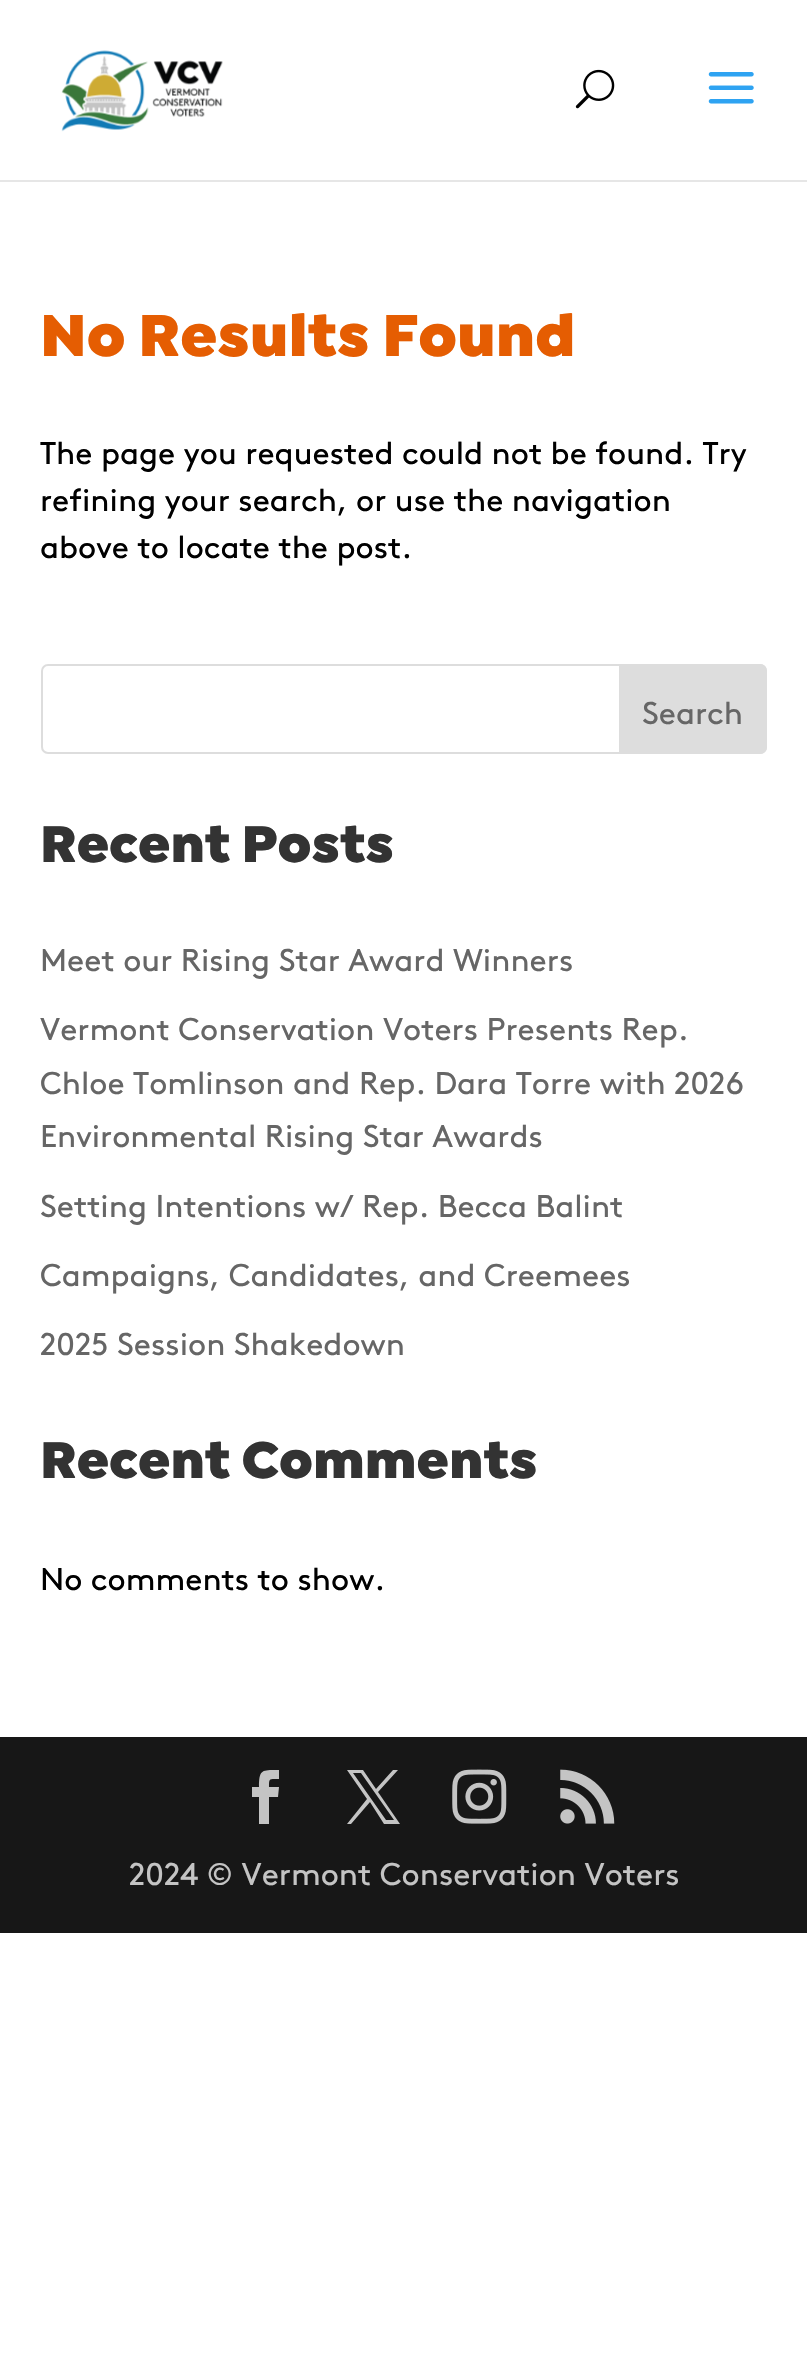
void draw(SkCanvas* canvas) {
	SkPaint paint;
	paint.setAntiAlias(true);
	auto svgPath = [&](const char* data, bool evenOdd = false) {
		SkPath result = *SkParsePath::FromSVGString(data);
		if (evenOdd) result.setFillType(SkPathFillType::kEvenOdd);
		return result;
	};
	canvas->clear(0xffffffff);
	paint.setColor(0xffe6e6e6);
	canvas->drawPath(svgPath("M0 180V182H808V2V180Z"), paint);
	canvas->drawImageRect(SkImages::DeferredFromEncodedData(SkData::MakeFromFileName("img1.png")), SkRect::MakeXYWH(61, 50, 162, 82), SkSamplingOptions());
	canvas->drawImageRect(SkImages::DeferredFromEncodedData(SkData::MakeFromFileName("img2.png")), SkRect::MakeXYWH(575, 69, 40, 40), SkSamplingOptions());
	canvas->drawImageRect(SkImages::DeferredFromEncodedData(SkData::MakeFromFileName("img3.png")), SkRect::MakeXYWH(708, 72, 46, 32), SkSamplingOptions());
	SkFont f1(fontMgr->matchFamilyStyle("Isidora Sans", SkFontStyle(900, SkFontStyle::kNormal_Width, SkFontStyle::kUpright_Slant)), 63);
	f1.setSubpixel(true);
	paint.setColor(0xffe55d02);
	canvas->drawString("No Results Found", 40, 356, f1, paint);
	SkFont f2(fontMgr->matchFamilyStyle("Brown", SkFontStyle::Normal()), 31.5);
	f2.setSubpixel(true);
	paint.setColor(0xff000000);
	canvas->drawString("The page you requested could not be found. Try", 40, 464, f2, paint);
	canvas->drawString("refining your search, or use the navigation", 40, 511, f2, paint);
	canvas->drawString("above to locate the post.", 40, 558, f2, paint);
	paint.setStroke(true);
	paint.setStrokeWidth(2);
	paint.setColor(0xffdddddd);
	canvas->drawRoundRect(SkRect::MakeXYWH(42, 665, 724, 88), 6, 6, paint);
	paint.setStroke(false);
	canvas->drawPath(svgPath("M620 665H760C763.5 665 766 667.5 766 671V747C766 750.5 763.5 753 760 753H620Z"), paint);
	paint.setStroke(true);
	canvas->drawPath(svgPath("M620 665H760C763.5 665 766 667.5 766 671V747C766 750.5 763.5 753 760 753H620Z"), paint);
	paint.setStroke(false);
	paint.setColor(0xff666666);
	canvas->drawString("Search", 642, 724, f2, paint);
	SkFont f3(fontMgr->matchFamilyStyle("Isidora Sans", SkFontStyle(900, SkFontStyle::kNormal_Width, SkFontStyle::kUpright_Slant)), 55.1);
	f3.setSubpixel(true);
	paint.setColor(0xff333333);
	canvas->drawString("Recent Posts", 40, 862, f3, paint);
	paint.setColor(0xff666666);
	canvas->drawString("Meet our Rising Star Award Winners", 40, 971, f2, paint);
	canvas->drawString("Vermont Conservation Voters Presents Rep.", 40, 1040, f2, paint);
	canvas->drawString("Chloe Tomlinson and Rep. Dara Torre with 2026", 40, 1094, f2, paint);
	canvas->drawString("Environmental Rising Star Awards", 40, 1147, f2, paint);
	canvas->drawString("Setting Intentions w/ Rep. Becca Balint", 40, 1217, f2, paint);
	canvas->drawString("Campaigns, Candidates, and Creemees", 40, 1286, f2, paint);
	canvas->drawString("2025 Session Shakedown", 40, 1355, f2, paint);
	paint.setColor(0xff333333);
	canvas->drawString("Recent Comments", 40, 1478, f3, paint);
	paint.setColor(0xff000000);
	canvas->drawString("No comments to show.", 40, 1590, f2, paint);
	paint.setColor(0xff171717);
	canvas->drawRect(SkRect::MakeXYWH(0, 1737, 807, 196), paint);
	paint.setColor(0xffc4c4c4);
	canvas->drawPath(svgPath("M259 1824H269V1797H278L279 1787H269C269 1778 269 1779 279 1779V1770C262 1770 259 1769 259 1787H252V1797H259Z"), paint);
	canvas->drawPath(svgPath("M347 1770L367 1799L347 1824H351L370 1802L384 1824H400L378 1792L398 1770H393L376 1789L363 1770ZM353 1773H361L394 1820H386Z"), paint);
	canvas->drawImageRect(SkImages::DeferredFromEncodedData(SkData::MakeFromFileName("img4.png")), SkRect::MakeXYWH(452, 1769, 55, 55), SkSamplingOptions());
	canvas->drawImageRect(SkImages::DeferredFromEncodedData(SkData::MakeFromFileName("img5.png")), SkRect::MakeXYWH(560, 1769, 55, 55), SkSamplingOptions());
	canvas->drawString("2024 © Vermont Conservation Voters", 129, 1885, f2, paint);
}
